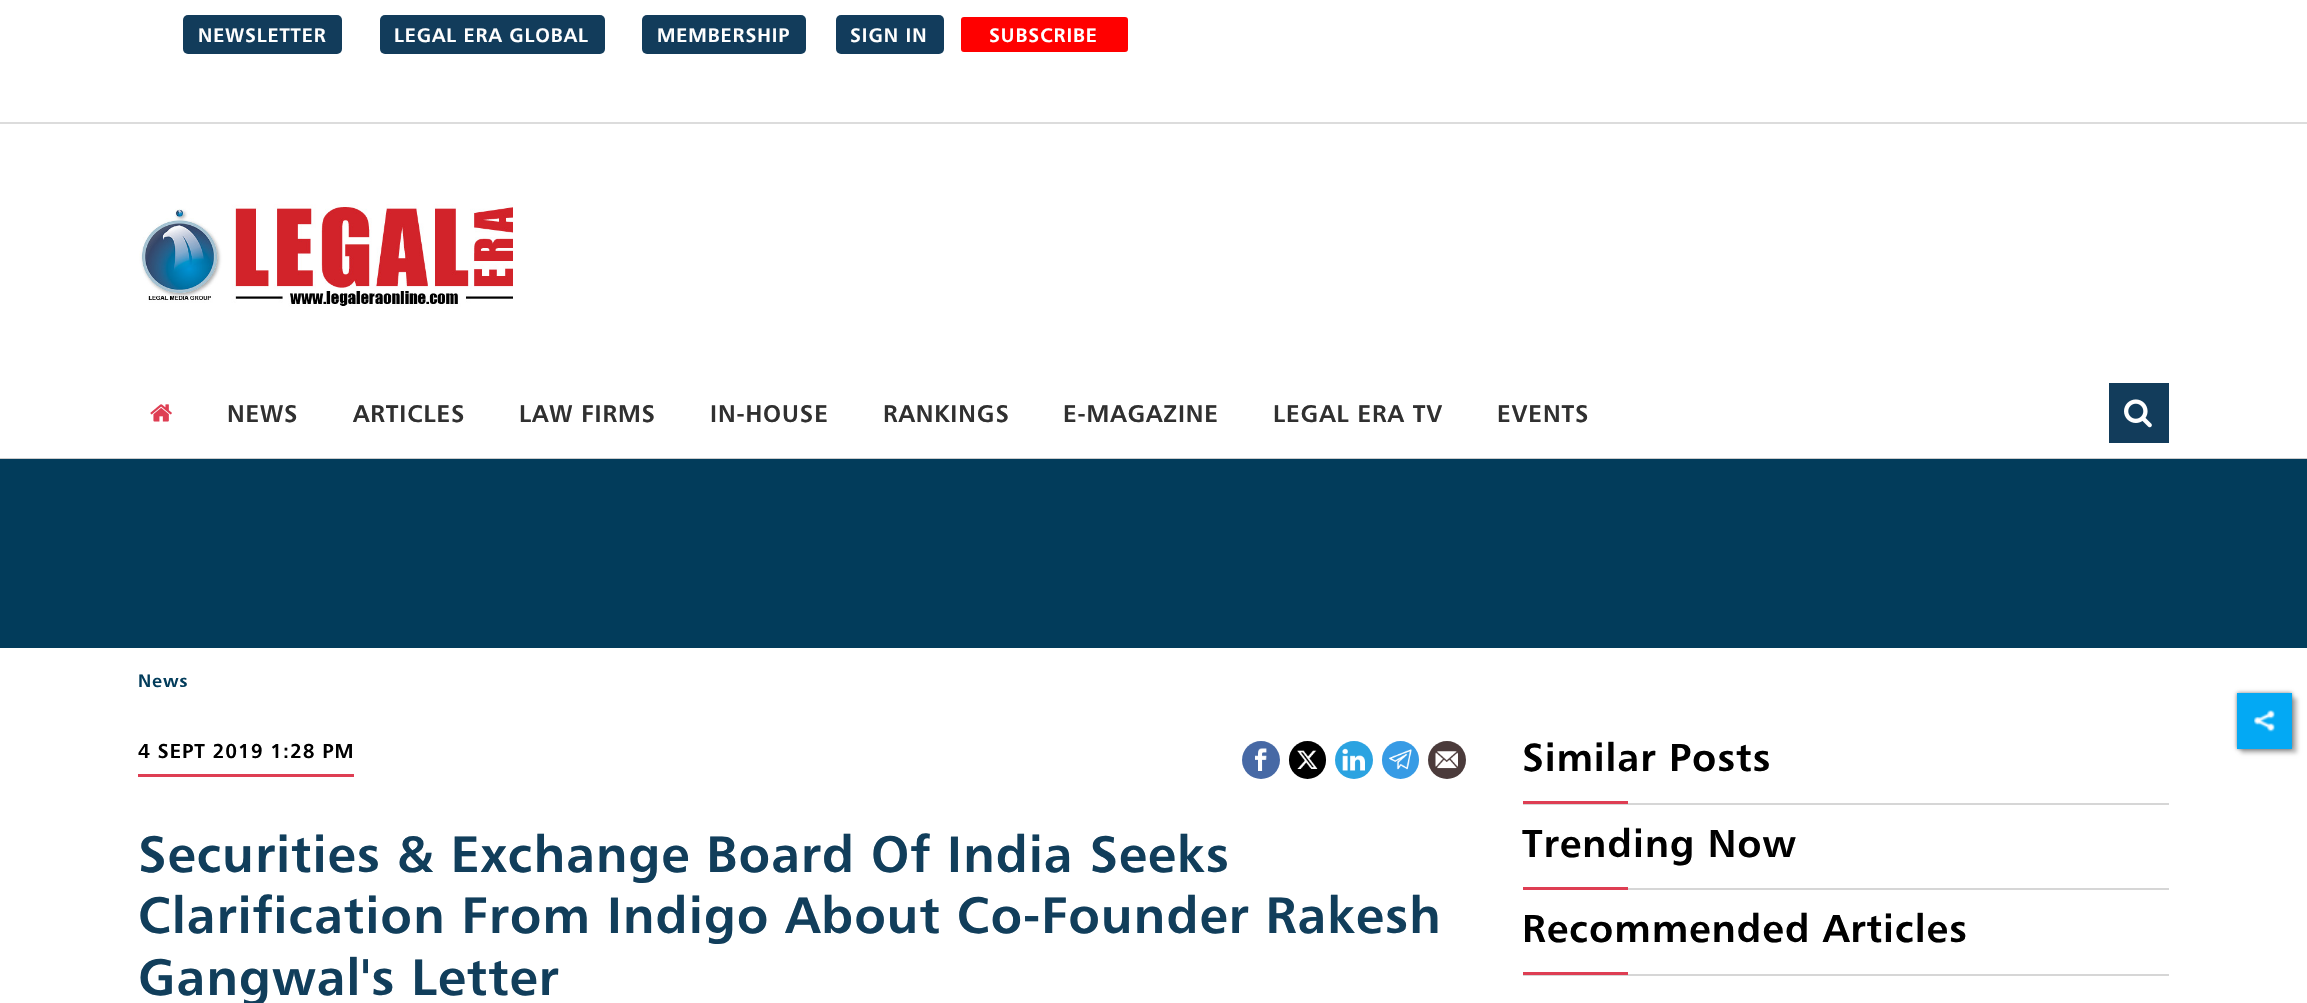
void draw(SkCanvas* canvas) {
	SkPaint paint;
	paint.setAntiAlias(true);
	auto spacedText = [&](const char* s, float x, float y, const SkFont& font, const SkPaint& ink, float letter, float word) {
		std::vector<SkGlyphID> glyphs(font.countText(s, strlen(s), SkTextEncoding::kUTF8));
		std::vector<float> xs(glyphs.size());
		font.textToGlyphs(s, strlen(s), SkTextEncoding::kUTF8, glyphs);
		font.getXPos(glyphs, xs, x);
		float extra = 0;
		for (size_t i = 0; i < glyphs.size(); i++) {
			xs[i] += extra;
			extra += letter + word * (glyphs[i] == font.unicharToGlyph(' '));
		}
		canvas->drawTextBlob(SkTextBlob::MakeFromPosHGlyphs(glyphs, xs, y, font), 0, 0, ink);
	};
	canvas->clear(0xffffffff);
	paint.setColor(0xffcccccc);
	canvas->drawRect(SkRect::MakeXYWH(0, 458, 2307, 1), paint);
	paint.setColor(0xffdcdcdc);
	canvas->drawRect(SkRect::MakeXYWH(0, 122, 2307, 2), paint);
	paint.setColor(0xff123c5b);
	canvas->drawRoundRect(SkRect::MakeXYWH(183, 15, 159, 39), 5, 5, paint);
	SkFont f1(fontMgr->matchFamilyStyle("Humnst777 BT", SkFontStyle::Bold()), 19.5);
	f1.setSubpixel(true);
	paint.setColor(0xffffffff);
	spacedText("NEWSLETTER", 198, 42, f1, paint, 0.9, 0);
	paint.setColor(0xff123c5b);
	canvas->drawRoundRect(SkRect::MakeXYWH(380, 15, 225, 39), 5, 5, paint);
	paint.setColor(0xffffffff);
	spacedText("LEGAL ERA GLOBAL", 394, 42, f1, paint, 0.9, 0);
	paint.setColor(0xff123c5b);
	canvas->drawRoundRect(SkRect::MakeXYWH(642, 15, 164, 39), 5, 5, paint);
	paint.setColor(0xffffffff);
	spacedText("MEMBERSHIP", 657, 42, f1, paint, 0.9, 0);
	paint.setColor(0xff123c5c);
	canvas->drawRoundRect(SkRect::MakeXYWH(836, 15, 108, 39), 5, 5, paint);
	paint.setColor(0xffffffff);
	spacedText("SIGN IN", 850, 42, f1, paint, 0.9, 0);
	paint.setColor(0xffff0000);
	canvas->drawRoundRect(SkRect::MakeXYWH(960, 16, 169, 37), 4, 4, paint);
	paint.setStroke(true);
	paint.setStrokeWidth(2);
	paint.setColor(0xffffffff);
	canvas->drawRoundRect(SkRect::MakeXYWH(960, 16, 169, 37), 4, 4, paint);
	paint.setStroke(false);
	spacedText("SUBSCRIBE", 989, 42, f1, paint, 0.9, 0);
	canvas->drawImageRect(SkImages::DeferredFromEncodedData(SkData::MakeFromFileName("img1.png")), SkRect::MakeXYWH(139, 204, 374, 103), SkSamplingOptions());
	canvas->drawImageRect(SkImages::DeferredFromEncodedData(SkData::MakeFromFileName("img2.png")), SkRect::MakeXYWH(150, 404, 22, 18), SkSamplingOptions());
	SkFont f2(fontMgr->matchFamilyStyle("Humnst777 BT", SkFontStyle::Bold()), 24);
	f2.setSubpixel(true);
	paint.setColor(0xff303030);
	spacedText("NEWS", 227, 422, f2, paint, 0.9, 0);
	spacedText("ARTICLES", 353, 422, f2, paint, 0.9, 0);
	spacedText("LAW FIRMS", 519, 422, f2, paint, 0.9, 0);
	spacedText("IN-HOUSE", 710, 422, f2, paint, 0.9, 0);
	spacedText("RANKINGS", 883, 422, f2, paint, 0.9, 0);
	spacedText("E-MAGAZINE", 1063, 422, f2, paint, 0.9, 0);
	spacedText("LEGAL ERA TV", 1273, 422, f2, paint, 0.9, 0);
	spacedText("EVENTS", 1497, 422, f2, paint, 0.9, 0);
	paint.setColor(0xff123c5b);
	canvas->drawRect(SkRect::MakeXYWH(2109, 383, 60, 60), paint);
	canvas->drawImageRect(SkImages::DeferredFromEncodedData(SkData::MakeFromFileName("img3.png")), SkRect::MakeXYWH(2124, 399, 28, 29), SkSamplingOptions());
	paint.setColor(0xff023c5b);
	canvas->drawRect(SkRect::MakeXYWH(0, 459, 2307, 189), paint);
	SkFont f3(fontMgr->matchFamilyStyle("Humnst777 BT", SkFontStyle::Bold()), 18);
	f3.setSubpixel(true);
	spacedText("News", 138, 687, f3, paint, 0.9, 0);
	SkFont f4(fontMgr->matchFamilyStyle("Humnst777 BT", SkFontStyle::Bold()), 20);
	f4.setSubpixel(true);
	paint.setColor(0xff000000);
	spacedText("4 SEPT 2019 1:28 PM", 138, 758, f4, paint, 0.9, 0);
	paint.setColor(0xffde3e53);
	canvas->drawRect(SkRect::MakeXYWH(138, 774, 216, 3), paint);
	paint.setColor(0xff4769a5);
	canvas->drawCircle(1261, 760, 19, paint);
	canvas->drawImageRect(SkImages::DeferredFromEncodedData(SkData::MakeFromFileName("img4.png")), SkRect::MakeXYWH(1255, 748, 12, 23), SkSamplingOptions());
	paint.setColor(0xff000000);
	canvas->drawRoundRect(SkRect::MakeXYWH(1289, 741, 37, 38), 18.5, 18.5, paint);
	canvas->drawImageRect(SkImages::DeferredFromEncodedData(SkData::MakeFromFileName("img5.png")), SkRect::MakeXYWH(1297, 750, 21, 19), SkSamplingOptions());
	paint.setColor(0xff2ba3e1);
	canvas->drawCircle(1354, 760, 19, paint);
	canvas->drawImageRect(SkImages::DeferredFromEncodedData(SkData::MakeFromFileName("img6.png")), SkRect::MakeXYWH(1342, 748, 23, 23), SkSamplingOptions());
	paint.setColor(0xff379be5);
	canvas->drawRoundRect(SkRect::MakeXYWH(1382, 741, 37, 38), 18.5, 18.5, paint);
	canvas->drawImageRect(SkImages::DeferredFromEncodedData(SkData::MakeFromFileName("img7.png")), SkRect::MakeXYWH(1389, 749, 23, 21), SkSamplingOptions());
	paint.setColor(0xff4b3b3b);
	canvas->drawCircle(1447, 760, 19, paint);
	canvas->drawImageRect(SkImages::DeferredFromEncodedData(SkData::MakeFromFileName("img8.png")), SkRect::MakeXYWH(1435, 751, 23, 18), SkSamplingOptions());
	SkFont f5(fontMgr->matchFamilyStyle("Humnst777 BT", SkFontStyle::Bold()), 51);
	f5.setSubpixel(true);
	paint.setColor(0xff113e5b);
	spacedText("Securities & Exchange Board Of India Seeks", 138, 872, f5, paint, 0.9, 0);
	spacedText("Clarification From Indigo About Co-Founder Rakesh", 138, 933, f5, paint, 0.9, 0);
	spacedText("Gangwal's Letter", 138, 995, f5, paint, 0.9, 0);
	paint.setColor(0xffd6d6d6);
	canvas->drawRect(SkRect::MakeXYWH(1523, 803, 646, 2), paint);
	SkFont f6(fontMgr->matchFamilyStyle("Humnst777 BT", SkFontStyle::Bold()), 39);
	f6.setSubpixel(true);
	paint.setColor(0xff000000);
	spacedText("Similar Posts", 1522, 771, f6, paint, 0.9, 0);
	paint.setColor(0xffde3e53);
	canvas->drawRect(SkRect::MakeXYWH(1523, 801, 105, 3), paint);
	paint.setColor(0xffd6d6d6);
	canvas->drawRect(SkRect::MakeXYWH(1628, 888, 541, 2), paint);
	paint.setColor(0xff000000);
	spacedText("Trending Now", 1522, 857, f6, paint, 0.9, 0);
	paint.setColor(0xffde3e53);
	canvas->drawRect(SkRect::MakeXYWH(1523, 887, 105, 3), paint);
	paint.setColor(0xffd6d6d6);
	canvas->drawRect(SkRect::MakeXYWH(1523, 974, 646, 2), paint);
	paint.setColor(0xff000000);
	spacedText("Recommended Articles", 1522, 942, f6, paint, 0.9, 0);
	paint.setColor(0xffde3e53);
	canvas->drawRect(SkRect::MakeXYWH(1523, 972, 105, 3), paint);
	paint.setColor(0x40000000);
	paint.setMaskFilter(SkMaskFilter::MakeBlur(kNormal_SkBlurStyle, 2));
	canvas->drawRect(SkRect::MakeXYWH(2241, 698, 56, 55), paint);
	paint.setMaskFilter(nullptr);
	paint.setColor(0x80000000);
	paint.setMaskFilter(SkMaskFilter::MakeBlur(kNormal_SkBlurStyle, 2));
	canvas->drawRect(SkRect::MakeXYWH(2237, 693, 55, 56), paint);
	paint.setMaskFilter(nullptr);
	paint.setColor(0xff03a9f4);
	canvas->drawRect(SkRect::MakeXYWH(2237, 693, 55, 56), paint);
	canvas->drawImageRect(SkImages::DeferredFromEncodedData(SkData::MakeFromFileName("img9.png")), SkRect::MakeXYWH(2254, 710, 21, 22), SkSamplingOptions());
}
